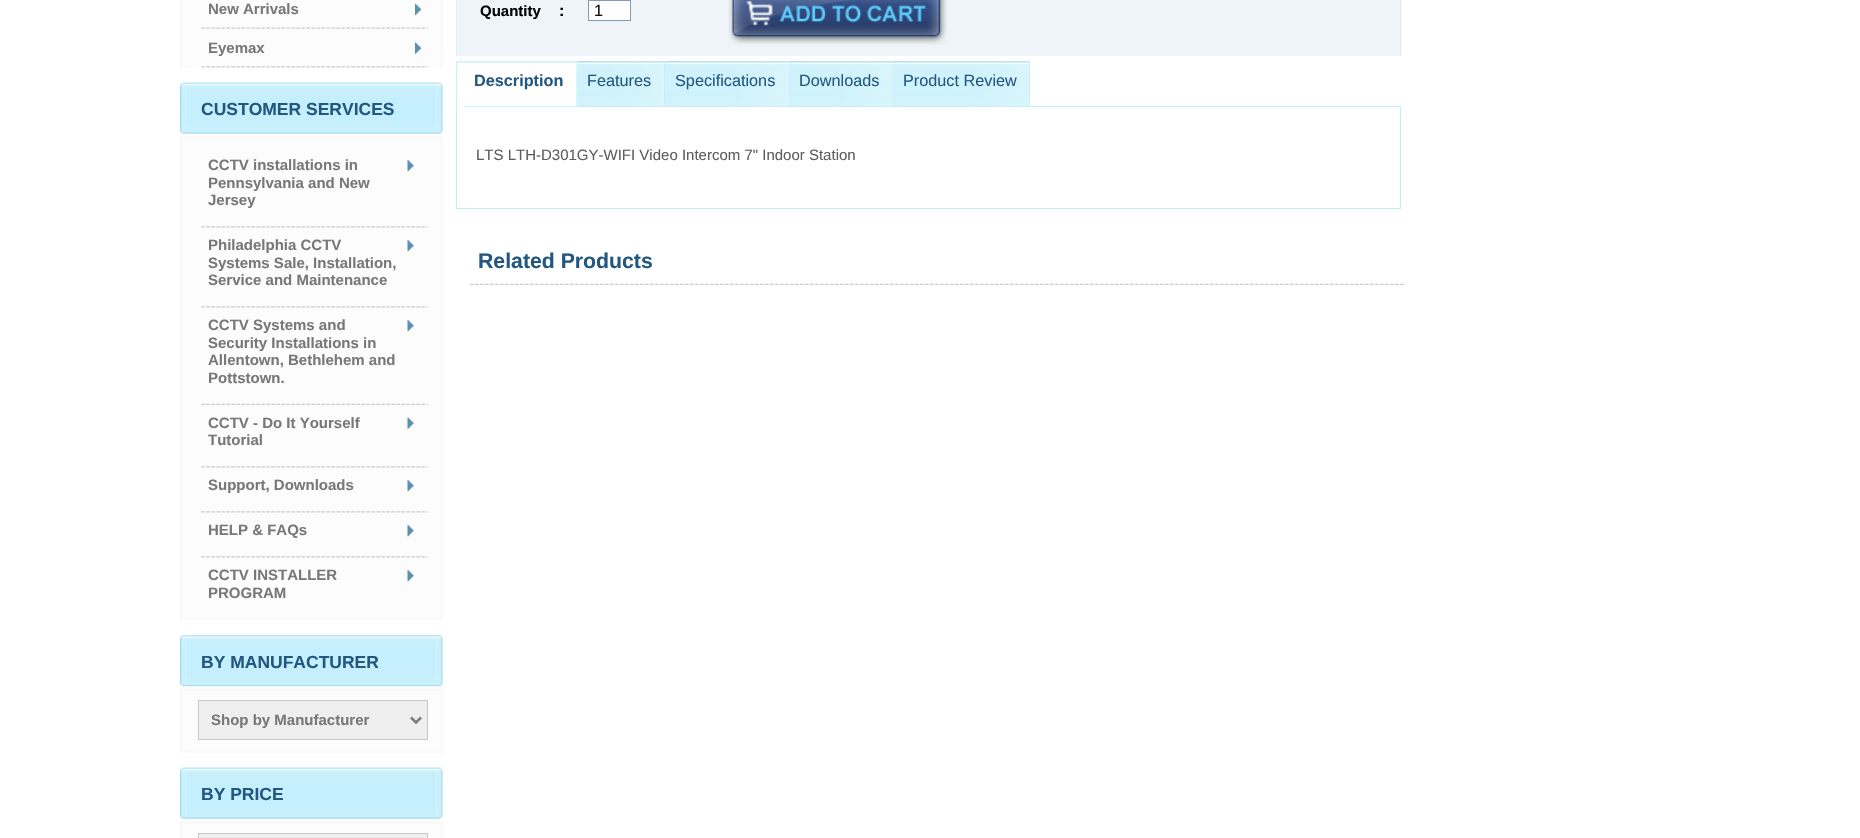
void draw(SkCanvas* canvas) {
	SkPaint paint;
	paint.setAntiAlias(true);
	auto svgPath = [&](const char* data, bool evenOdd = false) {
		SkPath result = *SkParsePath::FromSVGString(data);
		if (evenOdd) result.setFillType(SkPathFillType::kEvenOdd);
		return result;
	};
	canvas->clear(0xffffffff);
	canvas->drawImageRect(SkImages::DeferredFromEncodedData(SkData::MakeFromFileName("img1.png")), SkRect::MakeXYWH(180, 0, 263, 68), SkSamplingOptions());
	canvas->drawImageRect(SkImages::DeferredFromEncodedData(SkData::MakeFromFileName("img2.png")), SkRect::MakeXYWH(201, 27, 227, 2), SkSamplingOptions());
	canvas->drawImageRect(SkImages::DeferredFromEncodedData(SkData::MakeFromFileName("img3.png")), SkRect::MakeXYWH(415, 3, 7, 12), SkSamplingOptions());
	SkFont f1(fontMgr->matchFamilyStyle("Liberation Sans", SkFontStyle::Bold()), 15);
	f1.setSubpixel(true);
	paint.setColor(0xff787878);
	canvas->drawString("New Arrivals", 208, 14, f1, paint);
	canvas->drawImageRect(SkImages::DeferredFromEncodedData(SkData::MakeFromFileName("img4.png")), SkRect::MakeXYWH(201, 66, 227, 2), SkSamplingOptions());
	canvas->drawImageRect(SkImages::DeferredFromEncodedData(SkData::MakeFromFileName("img5.png")), SkRect::MakeXYWH(415, 42, 7, 12), SkSamplingOptions());
	canvas->drawString("Eyemax", 208, 53, f1, paint);
	canvas->drawImageRect(SkImages::DeferredFromEncodedData(SkData::MakeFromFileName("img6.png")), SkRect::MakeXYWH(180, 82, 7, 52), SkSamplingOptions());
	canvas->drawImageRect(SkImages::DeferredFromEncodedData(SkData::MakeFromFileName("img7.png")), SkRect::MakeXYWH(186, 82, 251, 52), SkSamplingOptions());
	SkFont f2(fontMgr->matchFamilyStyle("Liberation Sans", SkFontStyle::Bold()), 17.5);
	f2.setSubpixel(true);
	paint.setColor(0xff225780);
	canvas->drawString("CUSTOMER SERVICES", 201, 115, f2, paint);
	canvas->drawImageRect(SkImages::DeferredFromEncodedData(SkData::MakeFromFileName("img8.png")), SkRect::MakeXYWH(436, 82, 7, 52), SkSamplingOptions());
	paint.setColor(0xfff9f9f9);
	canvas->drawRect(SkRect::MakeXYWH(180, 136, 263, 3), paint);
	canvas->drawImageRect(SkImages::DeferredFromEncodedData(SkData::MakeFromFileName("img9.png")), SkRect::MakeXYWH(180, 139, 263, 481), SkSamplingOptions());
	canvas->drawImageRect(SkImages::DeferredFromEncodedData(SkData::MakeFromFileName("img10.png")), SkRect::MakeXYWH(201, 226, 227, 2), SkSamplingOptions());
	canvas->drawImageRect(SkImages::DeferredFromEncodedData(SkData::MakeFromFileName("img11.png")), SkRect::MakeXYWH(407, 160, 7, 12), SkSamplingOptions());
	paint.setColor(0xff787878);
	canvas->drawString("CCTV installations in", 208, 170, f1, paint);
	canvas->drawString("Pennsylvania and New", 208, 188, f1, paint);
	canvas->drawString("Jersey", 208, 205, f1, paint);
	canvas->drawImageRect(SkImages::DeferredFromEncodedData(SkData::MakeFromFileName("img10.png")), SkRect::MakeXYWH(201, 306, 227, 2), SkSamplingOptions());
	canvas->drawImageRect(SkImages::DeferredFromEncodedData(SkData::MakeFromFileName("img11.png")), SkRect::MakeXYWH(407, 240, 7, 12), SkSamplingOptions());
	canvas->drawString("Philadelphia CCTV", 208, 250, f1, paint);
	canvas->drawString("Systems Sale, Installation,", 208, 268, f1, paint);
	canvas->drawString("Service and Maintenance", 208, 285, f1, paint);
	canvas->drawImageRect(SkImages::DeferredFromEncodedData(SkData::MakeFromFileName("img12.png")), SkRect::MakeXYWH(201, 403, 227, 2), SkSamplingOptions());
	canvas->drawImageRect(SkImages::DeferredFromEncodedData(SkData::MakeFromFileName("img11.png")), SkRect::MakeXYWH(407, 320, 7, 12), SkSamplingOptions());
	canvas->drawString("CCTV Systems and", 208, 330, f1, paint);
	canvas->drawString("Security Installations in", 208, 348, f1, paint);
	canvas->drawString("Allentown, Bethlehem and", 208, 365, f1, paint);
	canvas->drawString("Pottstown.", 208, 383, f1, paint);
	canvas->drawImageRect(SkImages::DeferredFromEncodedData(SkData::MakeFromFileName("img10.png")), SkRect::MakeXYWH(201, 466, 227, 2), SkSamplingOptions());
	canvas->drawImageRect(SkImages::DeferredFromEncodedData(SkData::MakeFromFileName("img13.png")), SkRect::MakeXYWH(407, 417, 7, 12), SkSamplingOptions());
	canvas->drawString("CCTV - Do It Yourself", 208, 428, f1, paint);
	canvas->drawString("Tutorial", 208, 445, f1, paint);
	canvas->drawImageRect(SkImages::DeferredFromEncodedData(SkData::MakeFromFileName("img10.png")), SkRect::MakeXYWH(201, 511, 227, 2), SkSamplingOptions());
	canvas->drawImageRect(SkImages::DeferredFromEncodedData(SkData::MakeFromFileName("img11.png")), SkRect::MakeXYWH(407, 480, 7, 12), SkSamplingOptions());
	canvas->drawString("Support, Downloads", 208, 490, f1, paint);
	canvas->drawImageRect(SkImages::DeferredFromEncodedData(SkData::MakeFromFileName("img10.png")), SkRect::MakeXYWH(201, 556, 227, 2), SkSamplingOptions());
	canvas->drawImageRect(SkImages::DeferredFromEncodedData(SkData::MakeFromFileName("img11.png")), SkRect::MakeXYWH(407, 525, 7, 12), SkSamplingOptions());
	canvas->drawString("HELP & FAQs", 208, 535, f1, paint);
	canvas->drawImageRect(SkImages::DeferredFromEncodedData(SkData::MakeFromFileName("img11.png")), SkRect::MakeXYWH(407, 570, 7, 12), SkSamplingOptions());
	canvas->drawString("CCTV INSTALLER", 208, 580, f1, paint);
	canvas->drawString("PROGRAM", 208, 598, f1, paint);
	canvas->drawImageRect(SkImages::DeferredFromEncodedData(SkData::MakeFromFileName("img14.png")), SkRect::MakeXYWH(180, 635, 7, 52), SkSamplingOptions());
	canvas->drawImageRect(SkImages::DeferredFromEncodedData(SkData::MakeFromFileName("img15.png")), SkRect::MakeXYWH(186, 635, 251, 52), SkSamplingOptions());
	paint.setColor(0xff225780);
	canvas->drawString("BY MANUFACTURER", 201, 668, f2, paint);
	canvas->drawImageRect(SkImages::DeferredFromEncodedData(SkData::MakeFromFileName("img16.png")), SkRect::MakeXYWH(436, 635, 7, 52), SkSamplingOptions());
	canvas->drawImageRect(SkImages::DeferredFromEncodedData(SkData::MakeFromFileName("img17.png")), SkRect::MakeXYWH(180, 689, 263, 2), SkSamplingOptions());
	canvas->drawImageRect(SkImages::DeferredFromEncodedData(SkData::MakeFromFileName("img18.png")), SkRect::MakeXYWH(180, 691, 263, 59), SkSamplingOptions());
	paint.setColor(0xffefefef);
	canvas->drawRect(SkRect::MakeXYWH(198.5, 700.5, 229, 39), paint);
	paint.setStroke(true);
	paint.setStrokeWidth(1);
	paint.setColor(0xffc7c7c7);
	canvas->drawRect(SkRect::MakeXYWH(198.5, 700.5, 229, 39), paint);
	paint.setStrokeWidth(2.5);
	paint.setColor(0xff7c7c7c);
	canvas->drawPath(svgPath("M411 717.5L416 722.5L421 717.5"), paint);
	paint.setStroke(false);
	paint.setColor(0xff787878);
	canvas->drawString("Shop by Manufacturer", 211, 725, f1, paint);
	paint.setColor(0xfffafafa);
	canvas->drawRect(SkRect::MakeXYWH(180, 750, 263, 3), paint);
	canvas->drawImageRect(SkImages::DeferredFromEncodedData(SkData::MakeFromFileName("img6.png")), SkRect::MakeXYWH(180, 767, 7, 52), SkSamplingOptions());
	canvas->drawImageRect(SkImages::DeferredFromEncodedData(SkData::MakeFromFileName("img7.png")), SkRect::MakeXYWH(186, 767, 251, 52), SkSamplingOptions());
	paint.setColor(0xff225780);
	canvas->drawString("BY PRICE", 201, 800, f2, paint);
	canvas->drawImageRect(SkImages::DeferredFromEncodedData(SkData::MakeFromFileName("img8.png")), SkRect::MakeXYWH(436, 767, 7, 52), SkSamplingOptions());
	paint.setColor(0xfff9f9f9);
	canvas->drawRect(SkRect::MakeXYWH(180, 821, 263, 3), paint);
	canvas->drawImageRect(SkImages::DeferredFromEncodedData(SkData::MakeFromFileName("img19.png")), SkRect::MakeXYWH(180, 824, 263, 14), SkSamplingOptions());
	paint.setColor(0xffefefef);
	canvas->drawRect(SkRect::MakeXYWH(198.5, 833.5, 229, 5), paint);
	paint.setStroke(true);
	paint.setStrokeWidth(1);
	paint.setColor(0xffc7c7c7);
	canvas->drawRect(SkRect::MakeXYWH(198.5, 833.5, 229, 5), paint);
	canvas->drawImageRect(SkImages::DeferredFromEncodedData(SkData::MakeFromFileName("img20.png")), SkRect::MakeXYWH(456, 0, 946, 57), SkSamplingOptions());
	paint.setStroke(false);
	paint.setColor(0xffeef4f7);
	canvas->drawRect(SkRect::MakeXYWH(458, 0, 942, 56), paint);
	paint.setColor(0xff010101);
	canvas->drawString("Quantity", 480, 16, f1, paint);
	SkFont f3(fontMgr->matchFamilyStyle("Liberation Sans", SkFontStyle::Bold()), 16.25);
	f3.setSubpixel(true);
	canvas->drawString(":", 559, 16, f3, paint);
	paint.setColor(0xffffffff);
	canvas->drawRect(SkRect::MakeXYWH(588.5, 0.5, 42, 20), paint);
	paint.setStroke(true);
	paint.setColor(0xff7f9db9);
	canvas->drawRect(SkRect::MakeXYWH(588.5, 0.5, 42, 20), paint);
	SkFont f4(fontMgr->matchFamilyStyle("Liberation Sans", SkFontStyle::Normal()), 16.25);
	f4.setSubpixel(true);
	paint.setStroke(false);
	paint.setColor(0xff101010);
	canvas->drawString("1", 594, 16, f4, paint);
	canvas->drawImageRect(SkImages::DeferredFromEncodedData(SkData::MakeFromFileName("img21.png")), SkRect::MakeXYWH(728, 0, 219, 45), SkSamplingOptions());
	canvas->drawImageRect(SkImages::DeferredFromEncodedData(SkData::MakeFromFileName("img22.png")), SkRect::MakeXYWH(456, 61, 2, 45), SkSamplingOptions());
	paint.setStroke(true);
	paint.setColor(0xffc0eefd);
	canvas->drawRect(SkRect::MakeXYWH(456.5, 106.5, 944, 102), paint);
	canvas->drawImageRect(SkImages::DeferredFromEncodedData(SkData::MakeFromFileName("img23.png")), SkRect::MakeXYWH(457, 61, 7, 46), SkSamplingOptions());
	canvas->drawImageRect(SkImages::DeferredFromEncodedData(SkData::MakeFromFileName("img22.png")), SkRect::MakeXYWH(576, 61, 2, 45), SkSamplingOptions());
	canvas->drawImageRect(SkImages::DeferredFromEncodedData(SkData::MakeFromFileName("img24.png")), SkRect::MakeXYWH(463, 61, 114, 46), SkSamplingOptions());
	paint.setStroke(false);
	paint.setColor(0xff225780);
	canvas->drawString("Description", 474, 86, f3, paint);
	canvas->drawImageRect(SkImages::DeferredFromEncodedData(SkData::MakeFromFileName("img25.png")), SkRect::MakeXYWH(577, 61, 15, 46), SkSamplingOptions());
	canvas->drawImageRect(SkImages::DeferredFromEncodedData(SkData::MakeFromFileName("img27.png")), SkRect::MakeXYWH(663, 61, 2, 45), SkSamplingOptions());
	canvas->drawImageRect(SkImages::DeferredFromEncodedData(SkData::MakeFromFileName("img26.png")), SkRect::MakeXYWH(577, 61, 87, 46), SkSamplingOptions());
	canvas->drawString("Features", 587, 86, f4, paint);
	canvas->drawImageRect(SkImages::DeferredFromEncodedData(SkData::MakeFromFileName("img28.png")), SkRect::MakeXYWH(665, 61, 14, 46), SkSamplingOptions());
	canvas->drawImageRect(SkImages::DeferredFromEncodedData(SkData::MakeFromFileName("img30.png")), SkRect::MakeXYWH(787, 61, 2, 45), SkSamplingOptions());
	canvas->drawImageRect(SkImages::DeferredFromEncodedData(SkData::MakeFromFileName("img29.png")), SkRect::MakeXYWH(665, 61, 123, 46), SkSamplingOptions());
	canvas->drawString("Specifications", 675, 86, f4, paint);
	canvas->drawImageRect(SkImages::DeferredFromEncodedData(SkData::MakeFromFileName("img31.png")), SkRect::MakeXYWH(788, 61, 15, 46), SkSamplingOptions());
	canvas->drawImageRect(SkImages::DeferredFromEncodedData(SkData::MakeFromFileName("img22.png")), SkRect::MakeXYWH(891, 61, 2, 45), SkSamplingOptions());
	canvas->drawImageRect(SkImages::DeferredFromEncodedData(SkData::MakeFromFileName("img32.png")), SkRect::MakeXYWH(788, 61, 104, 46), SkSamplingOptions());
	canvas->drawString("Downloads", 799, 86, f4, paint);
	canvas->drawImageRect(SkImages::DeferredFromEncodedData(SkData::MakeFromFileName("img33.png")), SkRect::MakeXYWH(892, 61, 15, 46), SkSamplingOptions());
	canvas->drawImageRect(SkImages::DeferredFromEncodedData(SkData::MakeFromFileName("img27.png")), SkRect::MakeXYWH(1028, 61, 2, 45), SkSamplingOptions());
	canvas->drawImageRect(SkImages::DeferredFromEncodedData(SkData::MakeFromFileName("img34.png")), SkRect::MakeXYWH(892, 61, 137, 46), SkSamplingOptions());
	canvas->drawString("Product Review", 903, 86, f4, paint);
	SkFont f5(fontMgr->matchFamilyStyle("Liberation Sans", SkFontStyle::Normal()), 15);
	f5.setSubpixel(true);
	paint.setColor(0xff5d5d5d);
	canvas->drawString("LTS LTH-D301GY-WIFI Video Intercom 7\" Indoor Station", 476, 160, f5, paint);
	canvas->drawImageRect(SkImages::DeferredFromEncodedData(SkData::MakeFromFileName("img35.png")), SkRect::MakeXYWH(470, 283, 935, 2), SkSamplingOptions());
	SkFont f6(fontMgr->matchFamilyStyle("Liberation Sans", SkFontStyle::Bold()), 21.25);
	f6.setSubpixel(true);
	paint.setColor(0xff225780);
	canvas->drawString("Related Products", 478, 268, f6, paint);
}
